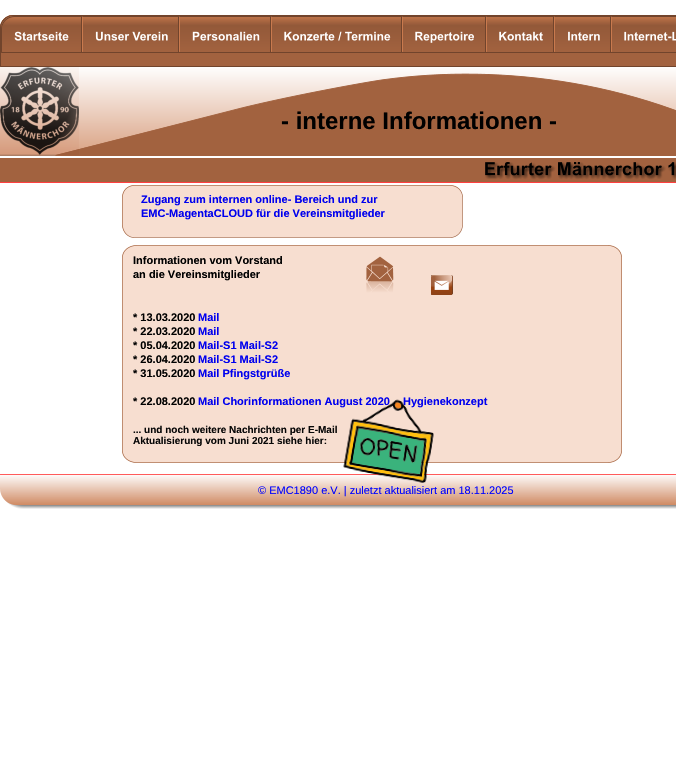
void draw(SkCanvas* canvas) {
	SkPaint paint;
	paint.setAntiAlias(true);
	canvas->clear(0xffffffff);
	canvas->drawImageRect(SkImages::DeferredFromEncodedData(SkData::MakeFromFileName("img1.png")), SkRect::MakeXYWH(0, 15, 91, 141), SkSamplingOptions());
	canvas->drawImageRect(SkImages::DeferredFromEncodedData(SkData::MakeFromFileName("img2.png")), SkRect::MakeXYWH(0, 15, 676, 131), SkSamplingOptions());
	canvas->drawImageRect(SkImages::DeferredFromEncodedData(SkData::MakeFromFileName("img3.png")), SkRect::MakeXYWH(1, 16, 81, 37), SkSamplingOptions());
	canvas->drawImageRect(SkImages::DeferredFromEncodedData(SkData::MakeFromFileName("img4.png")), SkRect::MakeXYWH(82, 16, 97, 37), SkSamplingOptions());
	canvas->drawImageRect(SkImages::DeferredFromEncodedData(SkData::MakeFromFileName("img5.png")), SkRect::MakeXYWH(179, 16, 92, 37), SkSamplingOptions());
	canvas->drawImageRect(SkImages::DeferredFromEncodedData(SkData::MakeFromFileName("img6.png")), SkRect::MakeXYWH(271, 16, 131, 37), SkSamplingOptions());
	canvas->drawImageRect(SkImages::DeferredFromEncodedData(SkData::MakeFromFileName("img7.png")), SkRect::MakeXYWH(402, 16, 84, 37), SkSamplingOptions());
	canvas->drawImageRect(SkImages::DeferredFromEncodedData(SkData::MakeFromFileName("img8.png")), SkRect::MakeXYWH(486, 16, 68, 37), SkSamplingOptions());
	canvas->drawImageRect(SkImages::DeferredFromEncodedData(SkData::MakeFromFileName("img9.png")), SkRect::MakeXYWH(554, 16, 57, 37), SkSamplingOptions());
	canvas->drawImageRect(SkImages::DeferredFromEncodedData(SkData::MakeFromFileName("img10.png")), SkRect::MakeXYWH(611, 16, 65, 37), SkSamplingOptions());
	canvas->drawImageRect(SkImages::DeferredFromEncodedData(SkData::MakeFromFileName("img12.png")), SkRect::MakeXYWH(55, 73, 621, 83), SkSamplingOptions());
	canvas->drawImageRect(SkImages::DeferredFromEncodedData(SkData::MakeFromFileName("img11.png")), SkRect::MakeXYWH(0, 67, 79, 88), SkSamplingOptions());
	SkFont f1(fontMgr->matchFamilyStyle("Liberation Sans", SkFontStyle::Bold()), 24);
	f1.setSubpixel(true);
	paint.setColor(0xff000000);
	canvas->drawString("- interne Informationen -", 281, 129, f1, paint);
	canvas->drawImageRect(SkImages::DeferredFromEncodedData(SkData::MakeFromFileName("img13.png")), SkRect::MakeXYWH(0, 158, 676, 25), SkSamplingOptions());
	canvas->drawImageRect(SkImages::DeferredFromEncodedData(SkData::MakeFromFileName("img14.png")), SkRect::MakeXYWH(0, 162, 676, 21), SkSamplingOptions());
	canvas->drawImageRect(SkImages::DeferredFromEncodedData(SkData::MakeFromFileName("img15.png")), SkRect::MakeXYWH(122, 185, 341, 53), SkSamplingOptions());
	SkFont f2(fontMgr->matchFamilyStyle("Liberation Sans", SkFontStyle::Bold()), 11);
	f2.setSubpixel(true);
	paint.setColor(0xff0000ee);
	canvas->drawString("Zugang zum internen online- Bereich und zur", 141, 203, f2, paint);
	canvas->drawString("EMC-MagentaCLOUD für die Vereinsmitglieder", 141, 217, f2, paint);
	canvas->drawImageRect(SkImages::DeferredFromEncodedData(SkData::MakeFromFileName("img16.png")), SkRect::MakeXYWH(122, 245, 500, 218), SkSamplingOptions());
	paint.setColor(0xff000000);
	canvas->drawString("Informationen vom Vorstand", 133, 264, f2, paint);
	canvas->drawString("an die Vereinsmitglieder", 133, 278, f2, paint);
	canvas->drawString("* 13.03.2020", 133, 321, f2, paint);
	paint.setColor(0xff0000ee);
	canvas->drawString("Mail", 198, 321, f2, paint);
	paint.setColor(0xff000000);
	canvas->drawString("* 22.03.2020", 133, 335, f2, paint);
	paint.setColor(0xff0000ee);
	canvas->drawString("Mail", 198, 335, f2, paint);
	paint.setColor(0xff000000);
	canvas->drawString("* 05.04.2020", 133, 349, f2, paint);
	paint.setColor(0xff0000ee);
	canvas->drawString("Mail-S1 Mail-S2", 198, 349, f2, paint);
	paint.setColor(0xff000000);
	canvas->drawString("* 26.04.2020", 133, 363, f2, paint);
	paint.setColor(0xff0000ee);
	canvas->drawString("Mail-S1 Mail-S2", 198, 363, f2, paint);
	paint.setColor(0xff000000);
	canvas->drawString("* 31.05.2020", 133, 377, f2, paint);
	paint.setColor(0xff0000ee);
	canvas->drawString("Mail Pfingstgrüße", 198, 377, f2, paint);
	paint.setColor(0xff000000);
	canvas->drawString("* 22.08.2020", 133, 405, f2, paint);
	paint.setColor(0xff0000ee);
	canvas->drawString("Mail Chorinformationen August 2020", 198, 405, f2, paint);
	canvas->drawString("Hygienekonzept", 403, 405, f2, paint);
	SkFont f3(fontMgr->matchFamilyStyle("Liberation Sans", SkFontStyle::Bold()), 10);
	f3.setSubpixel(true);
	paint.setColor(0xff070707);
	canvas->drawString("... und noch weitere Nachrichten per E-Mail", 133, 433, f3, paint);
	canvas->drawString("Aktualisierung vom Juni 2021 siehe hier:", 133, 444, f3, paint);
	canvas->drawImageRect(SkImages::DeferredFromEncodedData(SkData::MakeFromFileName("img17.png")), SkRect::MakeXYWH(431, 275, 22, 20), SkSamplingOptions());
	canvas->drawImageRect(SkImages::DeferredFromEncodedData(SkData::MakeFromFileName("img20.png")), SkRect::MakeXYWH(0, 489, 676, 20), SkSamplingOptions());
	canvas->drawImageRect(SkImages::DeferredFromEncodedData(SkData::MakeFromFileName("img19.png")), SkRect::MakeXYWH(0, 474, 676, 31), SkSamplingOptions());
	canvas->drawImageRect(SkImages::DeferredFromEncodedData(SkData::MakeFromFileName("img18.png")), SkRect::MakeXYWH(343, 399, 91, 84), SkSamplingOptions());
	SkFont f4(fontMgr->matchFamilyStyle("Liberation Sans", SkFontStyle::Normal()), 11);
	f4.setSubpixel(true);
	paint.setColor(0xff0003ff);
	canvas->drawString("© EMC1890 e.V. | zuletzt aktualisiert am 18.11.2025", 258, 494, f4, paint);
}
